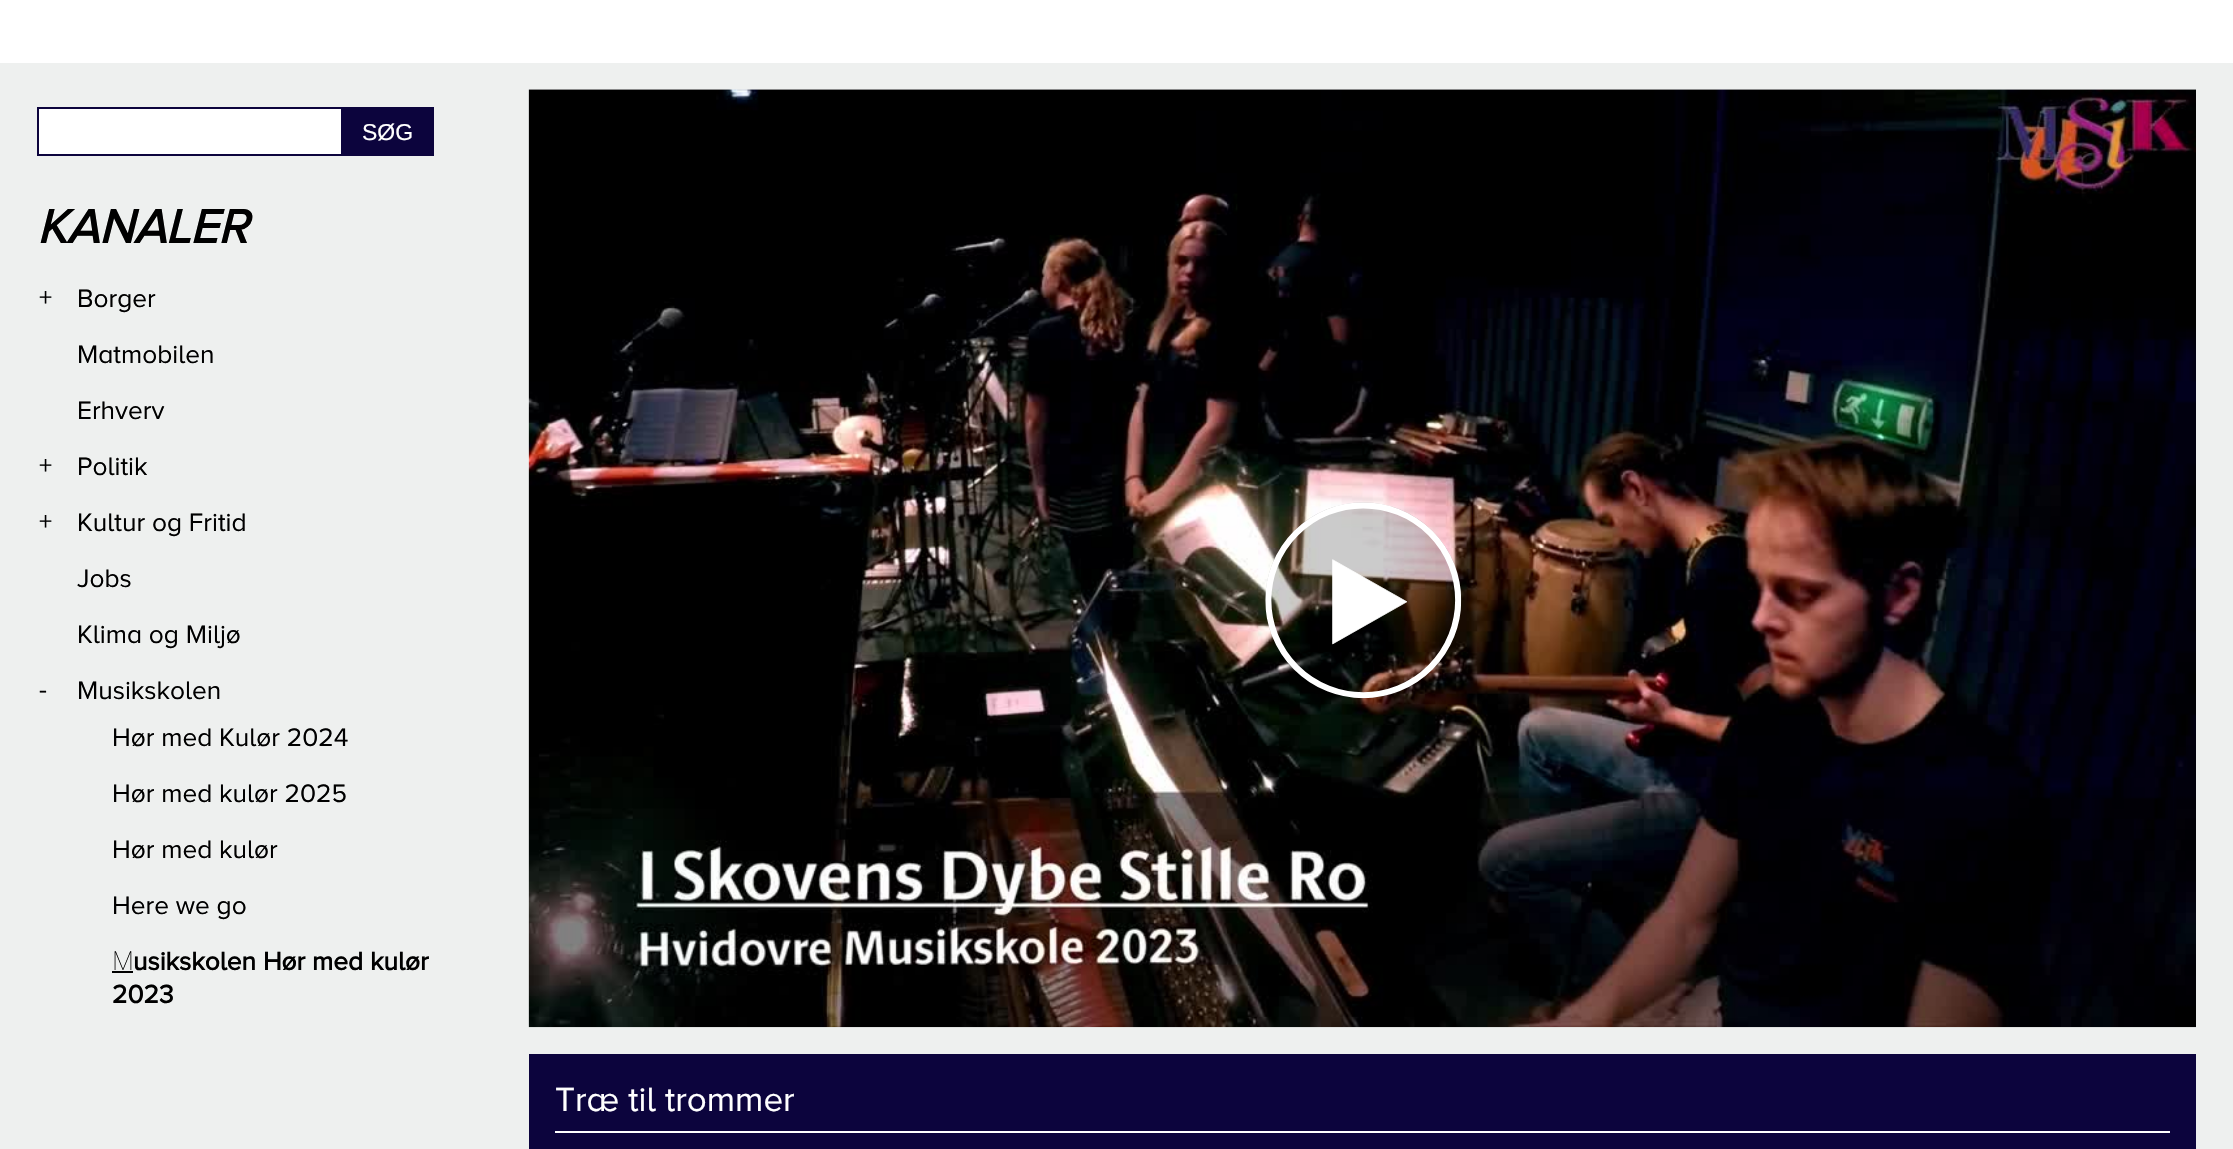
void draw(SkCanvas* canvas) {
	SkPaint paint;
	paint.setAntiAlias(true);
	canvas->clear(0xffeef0ef);
	paint.setColor(0xffffffff);
	canvas->drawRect(SkRect::MakeXYWH(0, 0, 2233, 63), paint);
	paint.setStroke(true);
	paint.setStrokeWidth(2);
	paint.setColor(0xff0c043d);
	canvas->drawRect(SkRect::MakeXYWH(38, 108, 304, 47), paint);
	paint.setStroke(false);
	paint.setColor(0xffffffff);
	canvas->drawRect(SkRect::MakeXYWH(39, 109, 302, 45), paint);
	paint.setColor(0xff0c043d);
	canvas->drawRect(SkRect::MakeXYWH(343, 107, 91, 49), paint);
	SkFont f1(fontMgr->matchFamilyStyle("Liberation Sans", SkFontStyle::Normal()), 23);
	f1.setSubpixel(true);
	paint.setColor(0xffffffff);
	canvas->drawString("SØG", 362, 140, f1, paint);
	SkFont f2(fontMgr->matchFamilyStyle("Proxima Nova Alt", SkFontStyle::BoldItalic()), 49);
	f2.setSubpixel(true);
	paint.setColor(0xff000000);
	canvas->drawString("KANALER", 37, 243, f2, paint);
	SkFont f3(fontMgr->matchFamilyStyle("Proxima Nova Alt", SkFontStyle::Normal()), 26.25);
	f3.setSubpixel(true);
	canvas->drawString("+", 39, 306, f3, paint);
	canvas->drawString("Borger", 77, 307, f3, paint);
	canvas->drawString("Matmobilen", 77, 363, f3, paint);
	canvas->drawString("Erhverv", 77, 419, f3, paint);
	canvas->drawString("+", 39, 474, f3, paint);
	canvas->drawString("Politik", 77, 475, f3, paint);
	canvas->drawString("+", 39, 530, f3, paint);
	canvas->drawString("Kultur og Fritid", 77, 531, f3, paint);
	canvas->drawString("Jobs", 77, 587, f3, paint);
	canvas->drawString("Klima og Miljø", 77, 643, f3, paint);
	canvas->drawString("-", 39, 698, f3, paint);
	canvas->drawString("Musikskolen", 77, 699, f3, paint);
	canvas->drawString("Hør med Kulør 2024", 112, 746, f3, paint);
	canvas->drawString("Hør med kulør 2025", 112, 802, f3, paint);
	canvas->drawString("Hør med kulør", 112, 858, f3, paint);
	canvas->drawString("Here we go", 112, 914, f3, paint);
	SkFont f4(fontMgr->matchFamilyStyle("Noto Sans", SkFontStyle(100, SkFontStyle::kNormal_Width, SkFontStyle::kUpright_Slant)), 26.25);
	f4.setSubpixel(true);
	canvas->drawString("M", 112, 970, f4, paint);
	canvas->drawRect(SkRect::MakeXYWH(112, 971, 21, 2), paint);
	SkFont f5(fontMgr->matchFamilyStyle("Proxima Nova Alt", SkFontStyle::Bold()), 26.25);
	f5.setSubpixel(true);
	canvas->drawString("usikskolen Hør med kulør", 133, 970, f5, paint);
	canvas->drawString("2023", 112, 1003, f5, paint);
	canvas->drawImageRect(SkImages::DeferredFromEncodedData(SkData::MakeFromFileName("img1.png")), SkRect::MakeXYWH(528, 89, 1668, 939), SkSamplingOptions());
	paint.setColor(0xff0c043d);
	canvas->drawRect(SkRect::MakeXYWH(529, 1054, 1667, 95), paint);
	paint.setColor(0xffffffff);
	canvas->drawRect(SkRect::MakeXYWH(555, 1131, 1615, 2), paint);
	SkFont f6(fontMgr->matchFamilyStyle("Proxima Nova Alt", SkFontStyle::Normal()), 35);
	f6.setSubpixel(true);
	canvas->drawString("Træ til trommer", 555, 1111, f6, paint);
}
